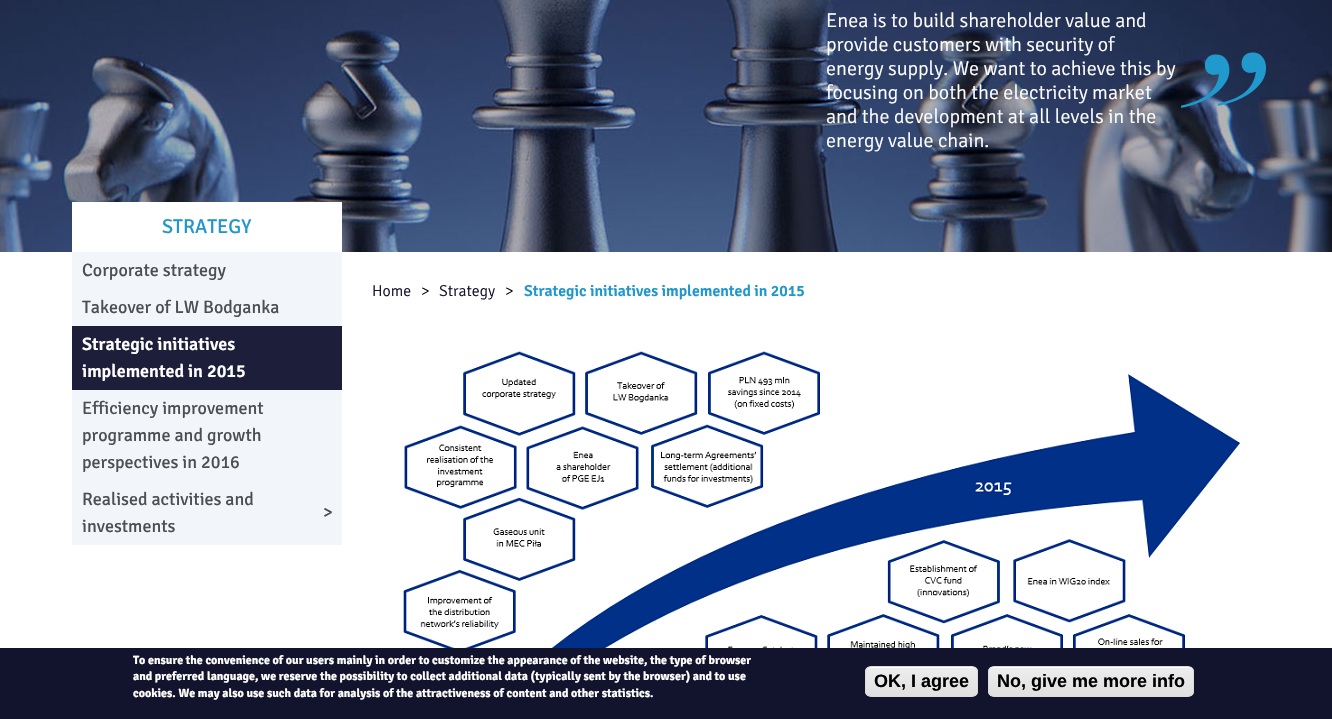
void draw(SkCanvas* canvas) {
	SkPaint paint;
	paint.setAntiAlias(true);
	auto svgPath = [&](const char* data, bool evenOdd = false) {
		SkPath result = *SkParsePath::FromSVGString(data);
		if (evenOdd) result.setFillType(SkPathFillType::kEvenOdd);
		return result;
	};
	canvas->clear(0xffffffff);
	canvas->drawImageRect(SkImages::DeferredFromEncodedData(SkData::MakeFromFileName("img1.png")), SkRect::MakeXYWH(0, 0, 1332, 252), SkSamplingOptions());
	SkFont f1(fontMgr->matchFamilyStyle("Signika", SkFontStyle(300, SkFontStyle::kNormal_Width, SkFontStyle::kUpright_Slant)), 20);
	f1.setSubpixel(true);
	paint.setColor(0xffffffff);
	canvas->drawString("Enea is to build shareholder value and", 826, 27, f1, paint);
	canvas->drawString("provide customers with security of", 826, 51, f1, paint);
	canvas->drawString("energy supply. We want to achieve this by", 826, 75, f1, paint);
	canvas->drawString("focusing on both the electricity market", 826, 99, f1, paint);
	canvas->drawString("and the development at all levels in the", 826, 123, f1, paint);
	canvas->drawString("energy value chain.", 826, 147, f1, paint);
	canvas->drawImageRect(SkImages::DeferredFromEncodedData(SkData::MakeFromFileName("img2.png")), SkRect::MakeXYWH(1181, 52, 85, 56), SkSamplingOptions());
	canvas->drawRect(SkRect::MakeXYWH(72, 202, 270, 50), paint);
	SkFont f2(fontMgr->matchFamilyStyle("Signika", SkFontStyle::Normal()), 20);
	f2.setSubpixel(true);
	paint.setColor(0xff1f97cd);
	canvas->drawString("STRATEGY", 162, 233, f2, paint);
	paint.setColor(0xfff2f6fb);
	canvas->drawRect(SkRect::MakeXYWH(72, 252, 270, 293), paint);
	SkFont f3(fontMgr->matchFamilyStyle("Signika", SkFontStyle::Normal()), 18);
	f3.setSubpixel(true);
	paint.setColor(0xff4c4e51);
	canvas->drawString("Corporate strategy", 82, 276, f3, paint);
	canvas->drawString("Takeover of LW Bodganka", 82, 313, f3, paint);
	paint.setColor(0xff1d1e39);
	canvas->drawRect(SkRect::MakeXYWH(72, 326, 270, 64), paint);
	SkFont f4(fontMgr->matchFamilyStyle("Signika", SkFontStyle(600, SkFontStyle::kNormal_Width, SkFontStyle::kUpright_Slant)), 18);
	f4.setSubpixel(true);
	paint.setColor(0xffffffff);
	canvas->drawString("Strategic initiatives", 82, 350, f4, paint);
	canvas->drawString("implemented in 2015", 82, 377, f4, paint);
	paint.setColor(0xff4c4e51);
	canvas->drawString("Efficiency improvement", 82, 414, f3, paint);
	canvas->drawString("programme and growth", 82, 441, f3, paint);
	canvas->drawString("perspectives in 2016", 82, 468, f3, paint);
	canvas->drawString("Realised activities and", 82, 505, f3, paint);
	canvas->drawString(">", 323, 518, f3, paint);
	canvas->drawString("investments", 82, 532, f3, paint);
	SkFont f5(fontMgr->matchFamilyStyle("Signika", SkFontStyle(300, SkFontStyle::kNormal_Width, SkFontStyle::kUpright_Slant)), 15.75);
	f5.setSubpixel(true);
	paint.setColor(0xff12132d);
	canvas->drawString("Home", 372, 296, f5, paint);
	paint.setColor(0xff000000);
	canvas->drawString(">", 421, 296, f5, paint);
	paint.setColor(0xff12132d);
	canvas->drawString("Strategy", 439, 296, f5, paint);
	paint.setColor(0xff000000);
	canvas->drawString(">", 505, 296, f5, paint);
	SkFont f6(fontMgr->matchFamilyStyle("Signika", SkFontStyle(600, SkFontStyle::kNormal_Width, SkFontStyle::kUpright_Slant)), 15.75);
	f6.setSubpixel(true);
	paint.setColor(0xff1f97cd);
	canvas->drawString("Strategic initiatives implemented in 2015", 524, 296, f6, paint);
	canvas->drawImageRect(SkImages::DeferredFromEncodedData(SkData::MakeFromFileName("img3.png")), SkRect::MakeXYWH(403, 351, 837, 297), SkSamplingOptions());
	paint.setColor(0xff12132d);
	canvas->drawRect(SkRect::MakeXYWH(0, 648, 1332, 71), paint);
	SkFont f7(fontMgr->matchFamilyStyle("Signika", SkFontStyle::Bold()), 12);
	f7.setSubpixel(true);
	paint.setColor(0xffffffff);
	canvas->drawString("To ensure the convenience of our users mainly in order to customize the appearance of the website, the type of browser", 133, 664, f7, paint);
	canvas->drawString("and preferred language, we reserve the possibility to collect additional data (typically sent by the browser) and to use", 133, 680, f7, paint);
	canvas->drawString("cookies. We may also use such data for analysis of the attractiveness of content and other statistics.", 133, 697, f7, paint);
	canvas->save();
	canvas->clipPath(svgPath("M871 666H972C975.5 666 978 668.5 978 672V691C978 694.5 975.5 697 972 697H871C867.5 697 865 694.5 865 691V672C865 668.5 867.5 666 871 666Z"), true);
	{
		const SkColor colors[] = {0xffededed, 0xffdfdfdf};
		const float stops[] = {0.05, 1};
		const SkPoint ends[] = {{866, 667}, {866, 696}};
		paint.setShader(SkGradientShader::MakeLinear(ends, colors, stops, 2, SkTileMode::kClamp));
		paint.setAlpha(255);
	}
	canvas->drawRect(SkRect::MakeXYWH(865, 667, 113, 29), paint);
	canvas->restore();
	paint.setShader(nullptr);
	paint.setColor(0xffffffff);
	canvas->drawPath(svgPath("M871 668H972C975 668 977 670 977 673C977 663 960 667 955 667H888C883 667 866 663 866 673C866 670 868 668 871 668Z"), paint);
	paint.setStroke(true);
	paint.setStrokeWidth(1);
	paint.setColor(0xffdcdcdc);
	canvas->drawRoundRect(SkRect::MakeXYWH(865.5, 666.5, 112, 30), 5.5, 5.5, paint);
	SkFont f8(fontMgr->matchFamilyStyle("Liberation Sans", SkFontStyle::Bold()), 18);
	f8.setSubpixel(true);
	paint.setStroke(false);
	paint.setColor(0xff000000);
	canvas->drawString("OK, I agree", 874, 687, f8, paint);
	canvas->save();
	canvas->clipPath(svgPath("M994 666H1188C1191.5 666 1194 668.5 1194 672V691C1194 694.5 1191.5 697 1188 697H994C990.5 697 988 694.5 988 691V672C988 668.5 990.5 666 994 666Z"), true);
	{
		const SkColor colors[] = {0xffededed, 0xffdfdfdf};
		const float stops[] = {0.05, 1};
		const SkPoint ends[] = {{989, 667}, {989, 696}};
		paint.setShader(SkGradientShader::MakeLinear(ends, colors, stops, 2, SkTileMode::kClamp));
		paint.setAlpha(255);
	}
	canvas->drawRect(SkRect::MakeXYWH(988, 667, 206, 29), paint);
	canvas->restore();
	paint.setShader(nullptr);
	paint.setColor(0xffffffff);
	canvas->drawPath(svgPath("M994 668H1188C1191 668 1193 670 1193 673V672C1193 669 1191 667 1188 667H994C991 667 989 669 989 672V673C989 670 991 668 994 668Z"), paint);
	paint.setStroke(true);
	paint.setColor(0xffdcdcdc);
	canvas->drawRoundRect(SkRect::MakeXYWH(988.5, 666.5, 205, 30), 5.5, 5.5, paint);
	paint.setStroke(false);
	paint.setColor(0xff000000);
	canvas->drawString("No, give me more info", 997, 687, f8, paint);
}
